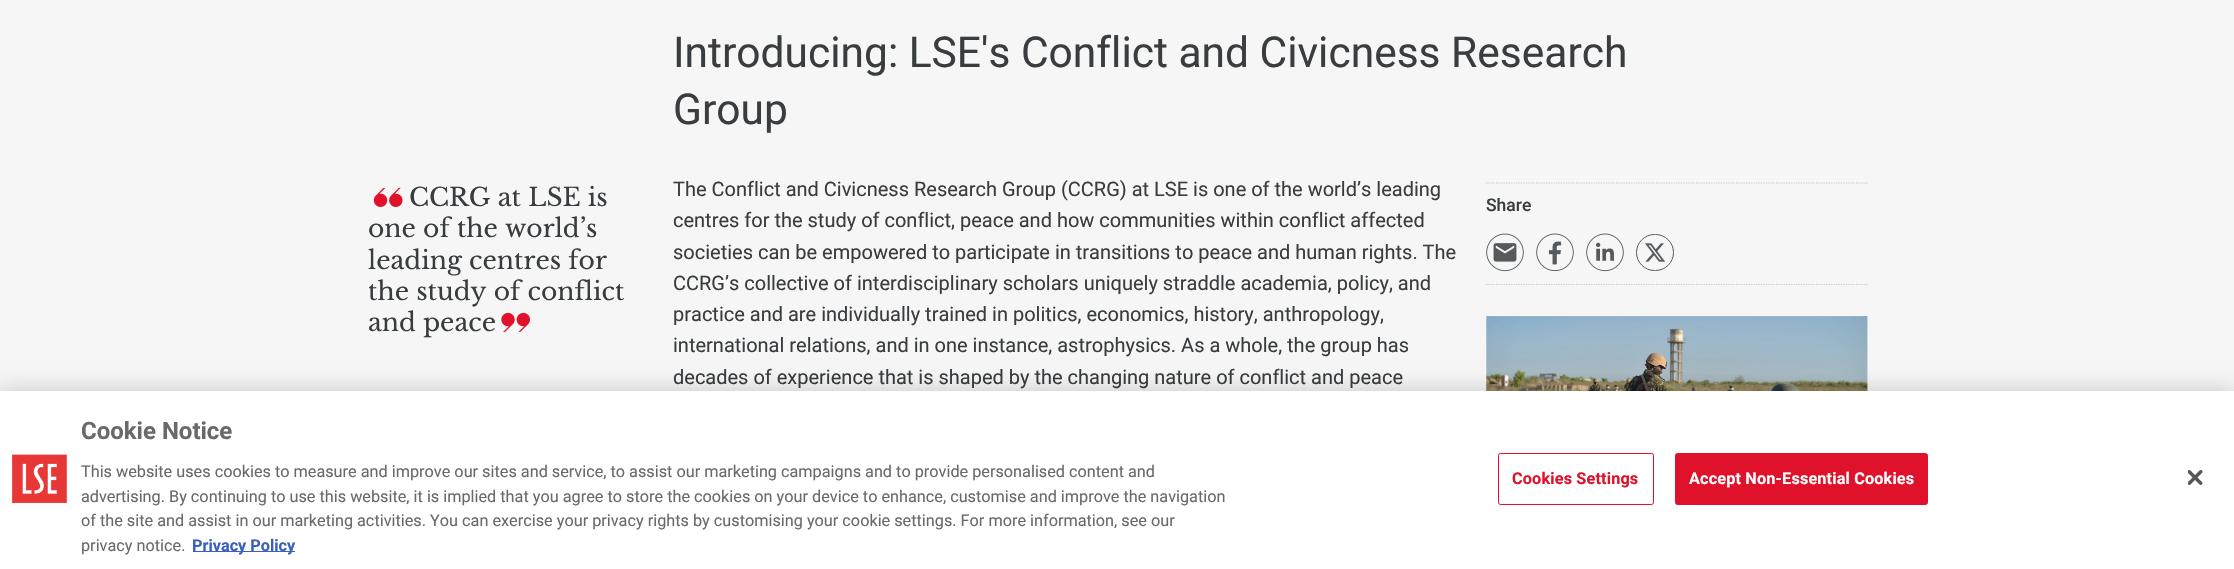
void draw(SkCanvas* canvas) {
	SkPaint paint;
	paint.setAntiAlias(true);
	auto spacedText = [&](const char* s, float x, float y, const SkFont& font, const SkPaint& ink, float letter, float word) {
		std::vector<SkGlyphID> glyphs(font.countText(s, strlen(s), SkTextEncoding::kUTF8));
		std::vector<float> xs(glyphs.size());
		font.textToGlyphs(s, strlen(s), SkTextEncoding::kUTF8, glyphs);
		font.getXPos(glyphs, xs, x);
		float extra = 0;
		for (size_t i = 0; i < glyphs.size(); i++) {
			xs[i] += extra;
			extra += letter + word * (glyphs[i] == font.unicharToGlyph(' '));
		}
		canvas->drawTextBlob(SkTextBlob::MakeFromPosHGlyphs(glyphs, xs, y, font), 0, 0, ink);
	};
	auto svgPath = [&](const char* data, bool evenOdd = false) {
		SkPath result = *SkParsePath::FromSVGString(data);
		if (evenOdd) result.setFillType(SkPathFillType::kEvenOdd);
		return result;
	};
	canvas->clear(0xfff6f6f6);
	SkFont f1(fontMgr->matchFamilyStyle("Roboto", SkFontStyle::Normal()), 42.5);
	f1.setSubpixel(true);
	paint.setColor(0xff3a3d3f);
	canvas->drawString("Introducing: LSE's Conflict and Civicness Research", 673, 67, f1, paint);
	canvas->drawString("Group", 673, 124, f1, paint);
	canvas->drawImageRect(SkImages::DeferredFromEncodedData(SkData::MakeFromFileName("img1.png")), SkRect::MakeXYWH(373, 187, 30, 20), SkSamplingOptions());
	SkFont f2(fontMgr->matchFamilyStyle("Libre Baskerville", SkFontStyle::Normal()), 25);
	f2.setSubpixel(true);
	canvas->drawString("CCRG at LSE is", 409, 206, f2, paint);
	canvas->drawString("one of the world’s", 368, 237, f2, paint);
	canvas->drawString("leading centres for", 368, 269, f2, paint);
	canvas->drawString("the study of conflict", 368, 300, f2, paint);
	canvas->drawString("and peace", 368, 331, f2, paint);
	canvas->drawImageRect(SkImages::DeferredFromEncodedData(SkData::MakeFromFileName("img2.png")), SkRect::MakeXYWH(501, 312, 29, 20), SkSamplingOptions());
	SkFont f3(fontMgr->matchFamilyStyle("Roboto", SkFontStyle::Normal()), 20);
	f3.setSubpixel(true);
	canvas->drawString("The Conflict and Civicness Research Group (CCRG) at LSE is one of the world’s leading", 673, 196, f3, paint);
	canvas->drawString("centres for the study of conflict, peace and how communities within conflict affected", 673, 227, f3, paint);
	canvas->drawString("societies can be empowered to participate in transitions to peace and human rights. The", 673, 259, f3, paint);
	canvas->drawString("CCRG’s collective of interdisciplinary scholars uniquely straddle academia, policy, and", 673, 290, f3, paint);
	canvas->drawString("practice and are individually trained in politics, economics, history, anthropology,", 673, 321, f3, paint);
	canvas->drawString("international relations, and in one instance, astrophysics. As a whole, the group has", 673, 352, f3, paint);
	canvas->drawString("decades of experience that is shaped by the changing nature of conflict and peace", 673, 384, f3, paint);
	paint.setStroke(true);
	paint.setStrokeWidth(1.2);
	paint.setColor(0xffc4c4c4);
	paint.setPathEffect(SkDashPathEffect::Make({{1.25f, 1.25f}}, 0));
	canvas->drawPath(svgPath("M1486 183H1867.5"), paint);
	paint.setPathEffect(nullptr);
	paint.setPathEffect(SkDashPathEffect::Make({{1.25f, 1.25f}}, 0));
	canvas->drawPath(svgPath("M1486 284.5H1867.5"), paint);
	paint.setPathEffect(nullptr);
	SkFont f4(fontMgr->matchFamilyStyle("Roboto", SkFontStyle(500, SkFontStyle::kNormal_Width, SkFontStyle::kUpright_Slant)), 17.5);
	f4.setSubpixel(true);
	paint.setStroke(false);
	paint.setColor(0xff3a3d3f);
	canvas->drawString("Share", 1486, 211, f4, paint);
	canvas->drawImageRect(SkImages::DeferredFromEncodedData(SkData::MakeFromFileName("img3.png")), SkRect::MakeXYWH(1486, 233, 38, 39), SkSamplingOptions());
	canvas->drawImageRect(SkImages::DeferredFromEncodedData(SkData::MakeFromFileName("img4.png")), SkRect::MakeXYWH(1536, 233, 38, 39), SkSamplingOptions());
	canvas->drawImageRect(SkImages::DeferredFromEncodedData(SkData::MakeFromFileName("img5.png")), SkRect::MakeXYWH(1586, 233, 38, 39), SkSamplingOptions());
	paint.setStroke(true);
	paint.setStrokeWidth(1);
	paint.setColor(0xff565a5c);
	canvas->drawRoundRect(SkRect::MakeXYWH(1636.5, 234.5, 37, 36), 18, 18, paint);
	canvas->drawImageRect(SkImages::DeferredFromEncodedData(SkData::MakeFromFileName("img6.png")), SkRect::MakeXYWH(1645, 243, 20, 19), SkSamplingOptions());
	paint.setStroke(false);
	paint.setColor(0xffffffff);
	canvas->drawRect(SkRect::MakeXYWH(1486, 316, 382, 75), paint);
	canvas->drawImageRect(SkImages::DeferredFromEncodedData(SkData::MakeFromFileName("img7.png")), SkRect::MakeXYWH(1486, 316, 382, 75), SkSamplingOptions());
	paint.setColor(0x33000000);
	paint.setMaskFilter(SkMaskFilter::MakeBlur(kNormal_SkBlurStyle, 11));
	canvas->drawRect(SkRect::MakeXYWH(0, 391, 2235, 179), paint);
	paint.setMaskFilter(nullptr);
	paint.setColor(0xffffffff);
	canvas->drawRect(SkRect::MakeXYWH(0, 391, 2234, 178), paint);
	canvas->drawImageRect(SkImages::DeferredFromEncodedData(SkData::MakeFromFileName("img8.png")), SkRect::MakeXYWH(12, 454, 55, 49), SkSamplingOptions());
	SkFont f5(fontMgr->matchFamilyStyle("Roboto", SkFontStyle::Bold()), 24);
	f5.setSubpixel(true);
	paint.setColor(0xff696969);
	canvas->drawString("Cookie Notice", 81, 439, f5, paint);
	SkFont f6(fontMgr->matchFamilyStyle("Roboto", SkFontStyle::Normal()), 16.25);
	f6.setSubpixel(true);
	canvas->drawString("This website uses cookies to measure and improve our sites and service, to assist our marketing campaigns and to provide personalised content and", 81, 477, f6, paint);
	canvas->drawString("advertising. By continuing to use this website, it is implied that you agree to store the cookies on your device to enhance, customise and improve the navigation", 81, 502, f6, paint);
	canvas->drawString("of the site and assist in our marketing activities. You can exercise your privacy rights by customising your cookie settings. For more information, see our", 81, 526, f6, paint);
	canvas->drawString("privacy notice.", 81, 551, f6, paint);
	paint.setColor(0xff3860be);
	canvas->drawRect(SkRect::MakeXYWH(193, 551, 102, 1), paint);
	SkFont f7(fontMgr->matchFamilyStyle("Roboto", SkFontStyle::Bold()), 16.25);
	f7.setSubpixel(true);
	canvas->drawString("Privacy Policy", 192, 551, f7, paint);
	paint.setStroke(true);
	paint.setColor(0xffe0112b);
	canvas->drawRoundRect(SkRect::MakeXYWH(1498.5, 453.5, 155, 51), 2, 2, paint);
	paint.setStroke(false);
	spacedText("Cookies Settings", 1512, 484, f7, paint, 0.15, 0);
	canvas->drawRoundRect(SkRect::MakeXYWH(1675.5, 453.5, 252, 51), 2, 2, paint);
	paint.setStroke(true);
	canvas->drawRoundRect(SkRect::MakeXYWH(1675.5, 453.5, 252, 51), 2, 2, paint);
	paint.setStroke(false);
	paint.setColor(0xffffffff);
	spacedText("Accept Non-Essential Cookies", 1689, 484, f7, paint, 0.15, 0);
	canvas->drawImageRect(SkImages::DeferredFromEncodedData(SkData::MakeFromFileName("img9.png")), SkRect::MakeXYWH(2188, 470, 15, 15), SkSamplingOptions());
}
